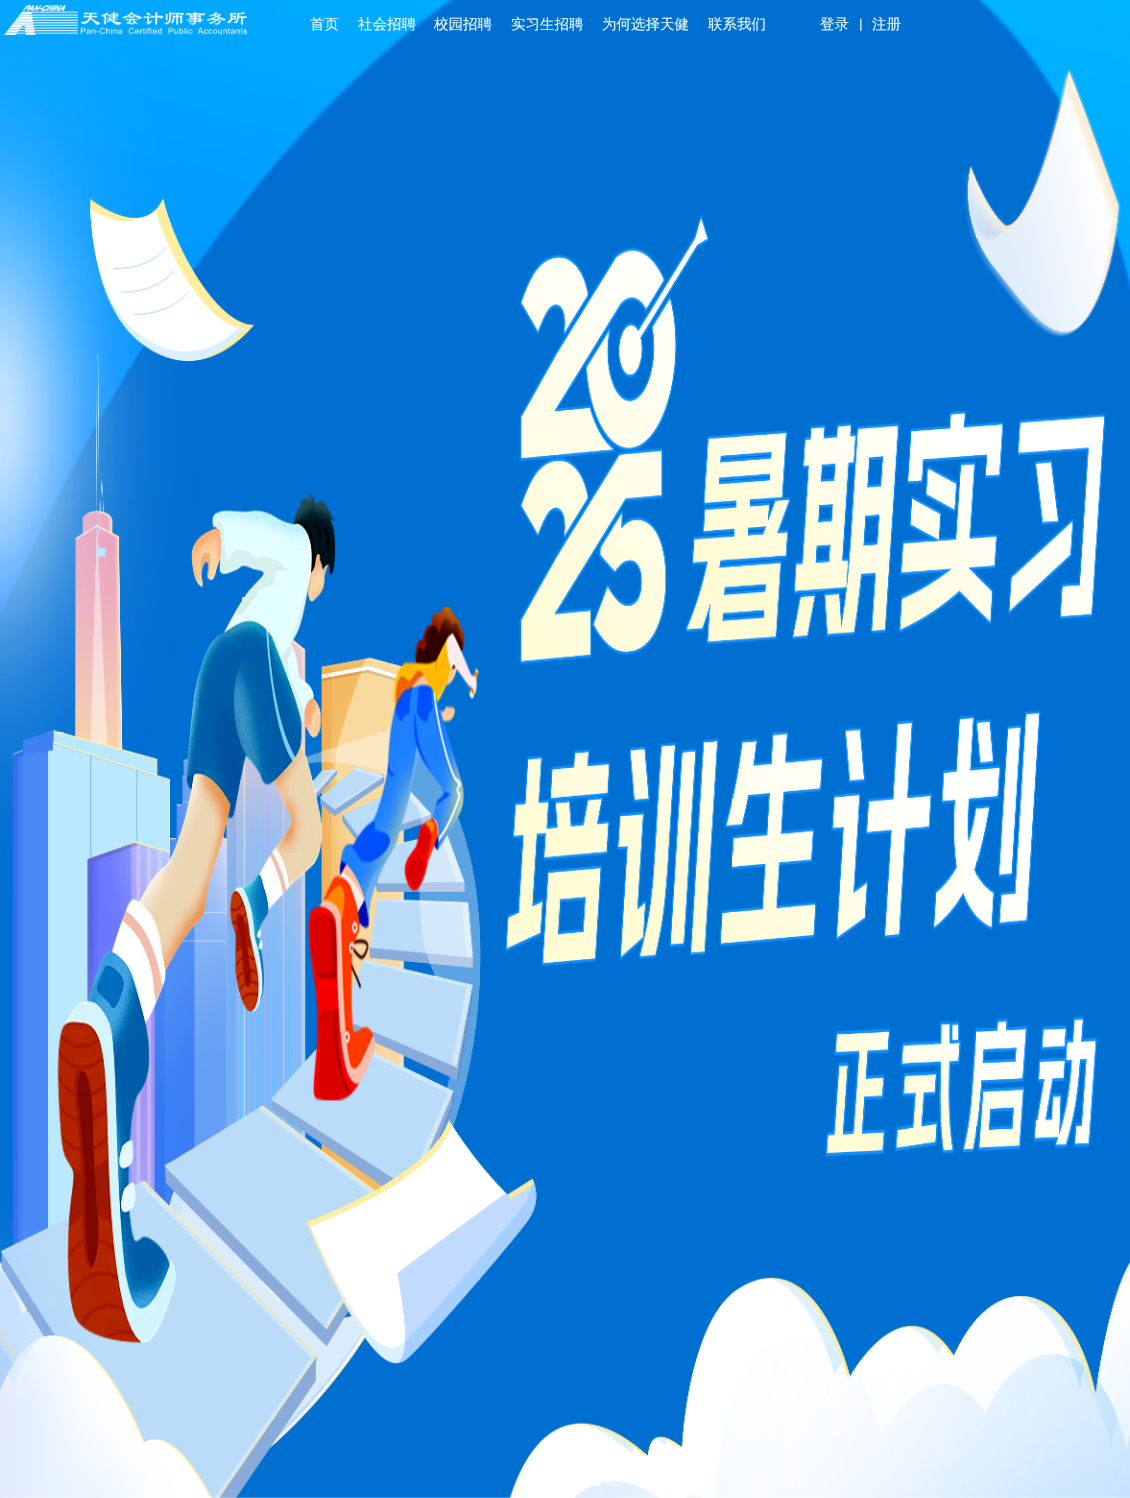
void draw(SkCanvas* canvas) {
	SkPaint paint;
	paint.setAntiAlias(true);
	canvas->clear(0xffffffff);
	canvas->drawImageRect(SkImages::DeferredFromEncodedData(SkData::MakeFromFileName("img1.png")), SkRect::MakeXYWH(0, 0, 1130, 1498), SkSamplingOptions());
	paint.setColor(0xffffffff);
	canvas->drawRoundRect(SkRect::MakeXYWH(576, 1483, 24, 3), 1, 1, paint);
	paint.setColor(0x4dffffff);
	canvas->drawRoundRect(SkRect::MakeXYWH(608, 1483, 16, 3), 1, 1, paint);
	canvas->drawImageRect(SkImages::DeferredFromEncodedData(SkData::MakeFromFileName("img2.png")), SkRect::MakeXYWH(3, 5, 244, 30), SkSamplingOptions());
	SkFont f1(fontMgr->matchFamilyStyle("WenQuanYi Zen Hei", SkFontStyle(500, SkFontStyle::kNormal_Width, SkFontStyle::kUpright_Slant)), 14.5);
	f1.setSubpixel(true);
	paint.setColor(0xffe6f6ff);
	canvas->drawString("首页", 310, 29, f1, paint);
	canvas->drawString("社会招聘", 358, 29, f1, paint);
	canvas->drawString("校园招聘", 434, 29, f1, paint);
	canvas->drawString("实习生招聘", 511, 29, f1, paint);
	canvas->drawString("为何选择天健", 602, 29, f1, paint);
	canvas->drawString("联系我们", 708, 29, f1, paint);
	canvas->drawString("登录", 820, 29, f1, paint);
	SkFont f2(fontMgr->matchFamilyStyle("Roboto", SkFontStyle::Normal()), 14.5);
	f2.setSubpixel(true);
	canvas->drawString("|", 859, 29, f2, paint);
	canvas->drawString("注册", 872, 29, f1, paint);
}
